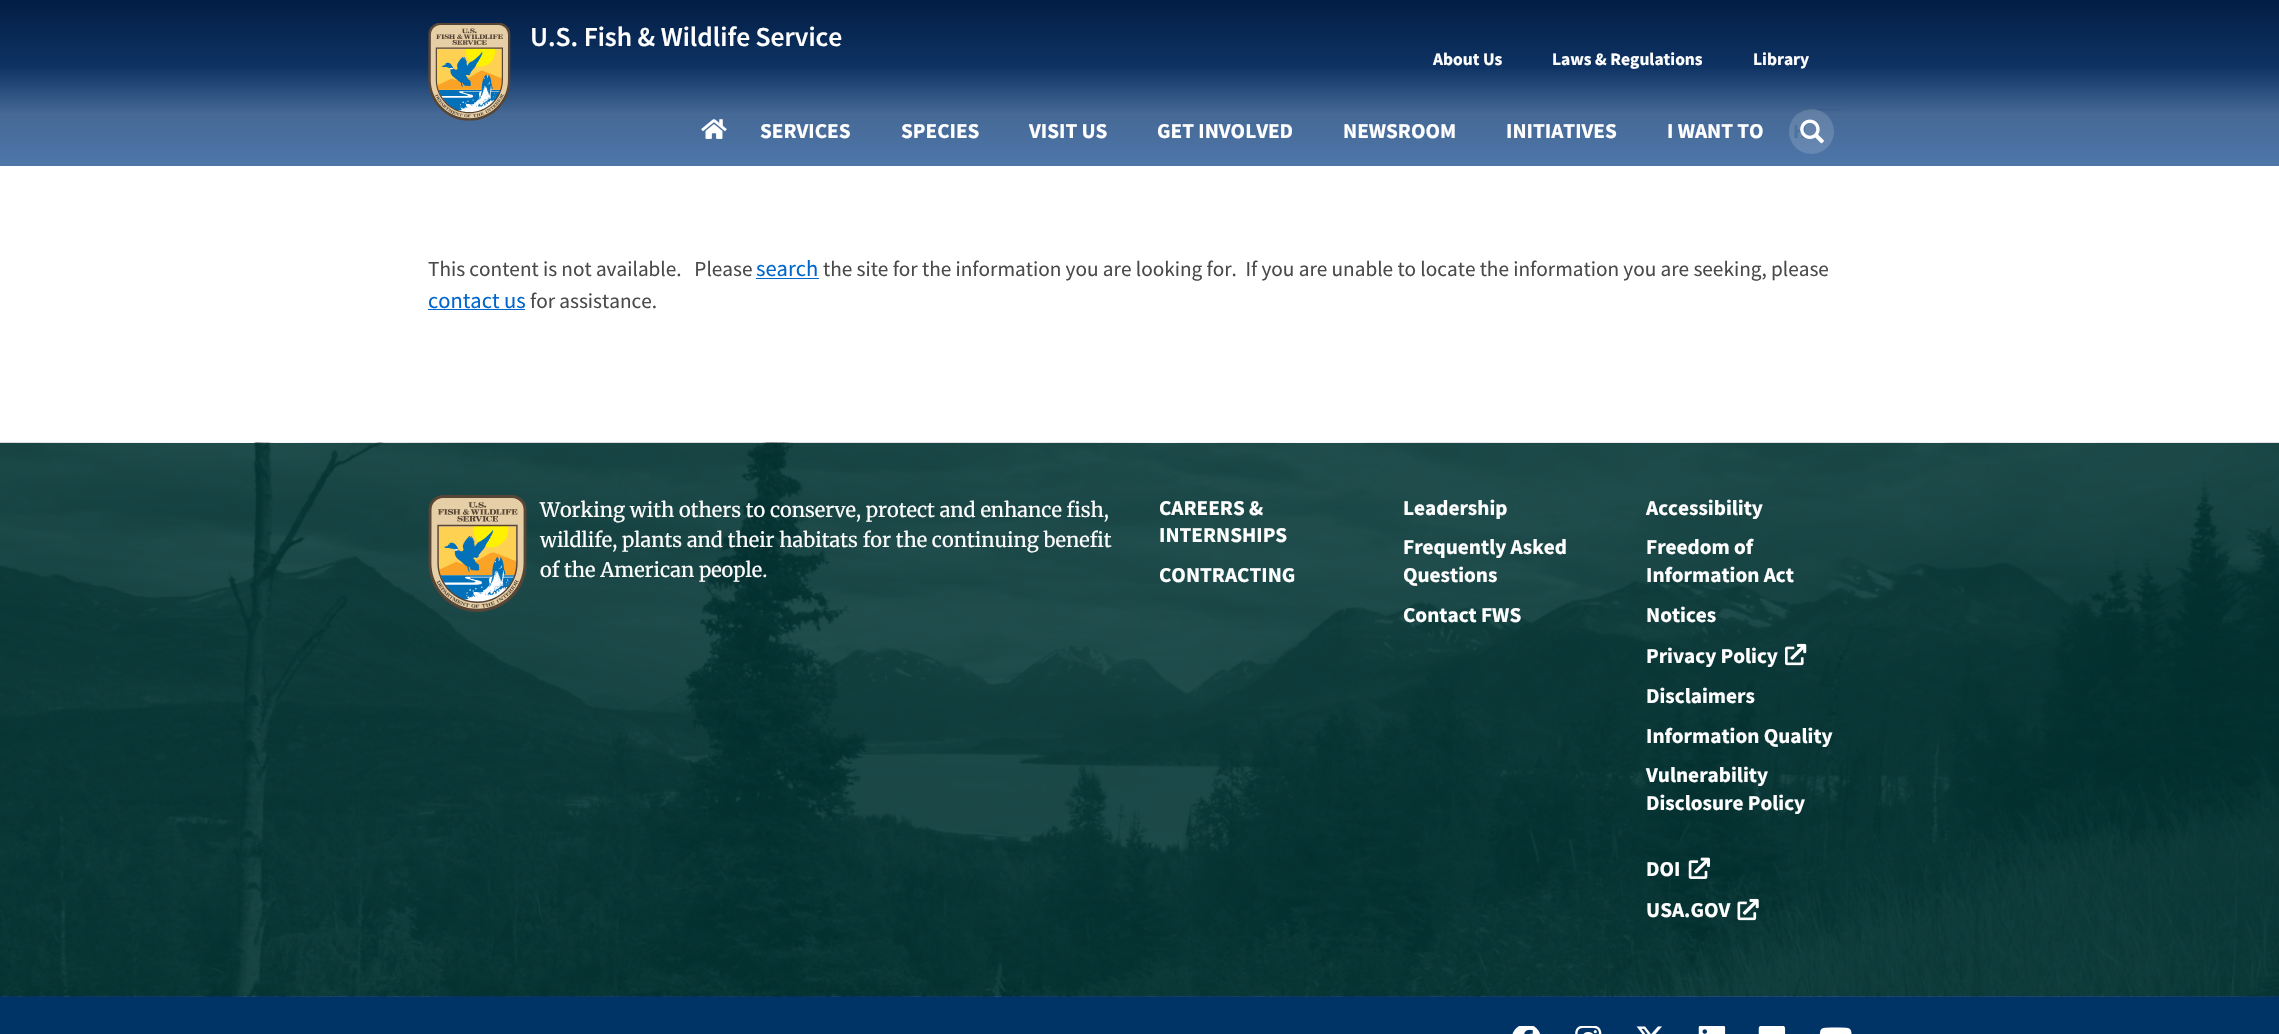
void draw(SkCanvas* canvas) {
	SkPaint paint;
	paint.setAntiAlias(true);
	auto spacedText = [&](const char* s, float x, float y, const SkFont& font, const SkPaint& ink, float letter, float word) {
		std::vector<SkGlyphID> glyphs(font.countText(s, strlen(s), SkTextEncoding::kUTF8));
		std::vector<float> xs(glyphs.size());
		font.textToGlyphs(s, strlen(s), SkTextEncoding::kUTF8, glyphs);
		font.getXPos(glyphs, xs, x);
		float extra = 0;
		for (size_t i = 0; i < glyphs.size(); i++) {
			xs[i] += extra;
			extra += letter + word * (glyphs[i] == font.unicharToGlyph(' '));
		}
		canvas->drawTextBlob(SkTextBlob::MakeFromPosHGlyphs(glyphs, xs, y, font), 0, 0, ink);
	};
	auto svgPath = [&](const char* data, bool evenOdd = false) {
		SkPath result = *SkParsePath::FromSVGString(data);
		if (evenOdd) result.setFillType(SkPathFillType::kEvenOdd);
		return result;
	};
	canvas->clear(0xffffffff);
	{
		const SkColor colors[] = {0xff021d44, 0xff0e3363, 0xff466996, 0xff4d76a9};
		const float stops[] = {0, 0.4, 0.69, 1};
		const SkPoint ends[] = {{1140, 0}, {1140, 166}};
		paint.setShader(SkGradientShader::MakeLinear(ends, colors, stops, 4, SkTileMode::kClamp));
		paint.setAlpha(255);
	}
	canvas->drawRect(SkRect::MakeXYWH(0, 0, 2279, 166), paint);
	canvas->drawImageRect(SkImages::DeferredFromEncodedData(SkData::MakeFromFileName("img1.png")), SkRect::MakeXYWH(428, 23, 83, 98), SkSamplingOptions());
	SkFont f1(fontMgr->matchFamilyStyle("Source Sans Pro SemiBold", SkFontStyle(600, SkFontStyle::kNormal_Width, SkFontStyle::kUpright_Slant)), 27.5);
	f1.setSubpixel(true);
	paint.setShader(nullptr);
	paint.setColor(0xffffffff);
	canvas->drawString("U.S. Fish & Wildlife Service", 530, 46, f1, paint);
	SkFont f2(fontMgr->matchFamilyStyle("Source Sans Pro", SkFontStyle::Bold()), 17.5);
	f2.setSubpixel(true);
	canvas->drawString("About Us", 1433, 65, f2, paint);
	canvas->drawString("Laws & Regulations", 1552, 65, f2, paint);
	canvas->drawString("Library", 1753, 65, f2, paint);
	canvas->drawImageRect(SkImages::DeferredFromEncodedData(SkData::MakeFromFileName("img2.png")), SkRect::MakeXYWH(701, 119, 26, 20), SkSamplingOptions());
	SkFont f3(fontMgr->matchFamilyStyle("Source Sans Pro", SkFontStyle::Bold()), 21.25);
	f3.setSubpixel(true);
	canvas->drawString("SERVICES", 760, 138, f3, paint);
	canvas->drawString("SPECIES", 901, 138, f3, paint);
	canvas->drawString("VISIT US", 1029, 138, f3, paint);
	canvas->drawString("GET INVOLVED", 1157, 138, f3, paint);
	canvas->drawString("NEWSROOM", 1343, 138, f3, paint);
	canvas->drawString("INITIATIVES", 1506, 138, f3, paint);
	canvas->drawString("I WANT TO", 1667, 138, f3, paint);
	paint.setColor(0x12000000);
	canvas->drawPath(svgPath("M1811 110H1841V109H1807C1797 112 1789 121 1789 132C1789 120 1799 110 1811 110Z"), paint);
	paint.setColor(0x26ffffff);
	canvas->drawCircle(1811.5, 131.5, 22.5, paint);
	SkFont f4(fontMgr->matchFamilyStyle("Source Sans Pro", SkFontStyle::Bold()), 20);
	f4.setSubpixel(true);
	paint.setColor(0xff4e729f);
	spacedText("H", 1793, 138, f4, paint, 1, 0);
	canvas->drawImageRect(SkImages::DeferredFromEncodedData(SkData::MakeFromFileName("img3.png")), SkRect::MakeXYWH(1800, 119, 24, 25), SkSamplingOptions());
	SkFont f5(fontMgr->matchFamilyStyle("Source Sans Pro", SkFontStyle::Normal()), 21.25);
	f5.setSubpixel(true);
	paint.setColor(0xff4a4a4a);
	canvas->drawString("This content is not available.   Please", 428, 276, f5, paint);
	SkFont f6(fontMgr->matchFamilyStyle("Source Sans Pro", SkFontStyle::Normal()), 22.5);
	f6.setSubpixel(true);
	paint.setColor(0xff0066cc);
	canvas->drawString("search", 756, 276, f6, paint);
	canvas->drawRect(SkRect::MakeXYWH(756, 278, 63, 1), paint);
	paint.setColor(0xff4a4a4a);
	canvas->drawString("the site for the information you are looking for.  If you are unable to locate the information you are seeking, please", 823, 276, f5, paint);
	paint.setColor(0xff0066cc);
	canvas->drawString("contact us", 428, 308, f6, paint);
	canvas->drawRect(SkRect::MakeXYWH(428, 309, 97, 1), paint);
	paint.setColor(0xff4a4a4a);
	canvas->drawString("for assistance.", 530, 308, f5, paint);
	paint.setColor(0xff003366);
	canvas->drawRect(SkRect::MakeXYWH(0, 996, 2279, 38), paint);
	canvas->drawImageRect(SkImages::DeferredFromEncodedData(SkData::MakeFromFileName("img4.png")), SkRect::MakeXYWH(0, 442, 2279, 555), SkSamplingOptions());
	canvas->drawImageRect(SkImages::DeferredFromEncodedData(SkData::MakeFromFileName("img5.png")), SkRect::MakeXYWH(428, 495, 99, 117), SkSamplingOptions());
	SkFont f7(fontMgr->matchFamilyStyle("Merriweather", SkFontStyle::Normal()), 20);
	f7.setSubpixel(true);
	paint.setColor(0xffffffff);
	canvas->drawString("Working with others to conserve, protect and enhance fish,", 540, 517, f7, paint);
	canvas->drawString("wildlife, plants and their habitats for the continuing benefit", 540, 547, f7, paint);
	canvas->drawString("of the American people.", 540, 577, f7, paint);
	canvas->drawString("CAREERS &", 1159, 515, f3, paint);
	canvas->drawString("INTERNSHIPS", 1159, 542, f3, paint);
	canvas->drawString("CONTRACTING", 1159, 582, f3, paint);
	canvas->drawString("Leadership", 1403, 515, f3, paint);
	canvas->drawString("Frequently Asked", 1403, 554, f3, paint);
	canvas->drawString("Questions", 1403, 582, f3, paint);
	canvas->drawString("Contact FWS", 1403, 622, f3, paint);
	canvas->drawString("Accessibility", 1646, 515, f3, paint);
	canvas->drawString("Freedom of", 1646, 554, f3, paint);
	canvas->drawString("Information Act", 1646, 582, f3, paint);
	canvas->drawString("Notices", 1646, 622, f3, paint);
	canvas->drawString("Privacy Policy", 1646, 663, f3, paint);
	canvas->drawImageRect(SkImages::DeferredFromEncodedData(SkData::MakeFromFileName("img6.png")), SkRect::MakeXYWH(1785, 643, 22, 23), SkSamplingOptions());
	canvas->drawString("Disclaimers", 1646, 703, f3, paint);
	canvas->drawString("Information Quality", 1646, 743, f3, paint);
	canvas->drawString("Vulnerability", 1646, 782, f3, paint);
	canvas->drawString("Disclosure Policy", 1646, 810, f3, paint);
	canvas->drawString("DOI", 1646, 876, f3, paint);
	canvas->drawImageRect(SkImages::DeferredFromEncodedData(SkData::MakeFromFileName("img7.png")), SkRect::MakeXYWH(1688, 857, 22, 22), SkSamplingOptions());
	canvas->drawString("USA.GOV", 1646, 917, f3, paint);
	canvas->drawImageRect(SkImages::DeferredFromEncodedData(SkData::MakeFromFileName("img8.png")), SkRect::MakeXYWH(1737, 898, 22, 23), SkSamplingOptions());
	canvas->drawImageRect(SkImages::DeferredFromEncodedData(SkData::MakeFromFileName("img9.png")), SkRect::MakeXYWH(1512, 1026, 28, 8), SkSamplingOptions());
	canvas->drawImageRect(SkImages::DeferredFromEncodedData(SkData::MakeFromFileName("img10.png")), SkRect::MakeXYWH(1575, 1026, 27, 8), SkSamplingOptions());
	canvas->drawImageRect(SkImages::DeferredFromEncodedData(SkData::MakeFromFileName("img11.png")), SkRect::MakeXYWH(1636, 1026, 26, 8), SkSamplingOptions());
	canvas->drawImageRect(SkImages::DeferredFromEncodedData(SkData::MakeFromFileName("img12.png")), SkRect::MakeXYWH(1698, 1026, 28, 8), SkSamplingOptions());
	canvas->drawImageRect(SkImages::DeferredFromEncodedData(SkData::MakeFromFileName("img13.png")), SkRect::MakeXYWH(1758, 1026, 28, 8), SkSamplingOptions());
	canvas->drawImageRect(SkImages::DeferredFromEncodedData(SkData::MakeFromFileName("img14.png")), SkRect::MakeXYWH(1819, 1027, 33, 7), SkSamplingOptions());
}
